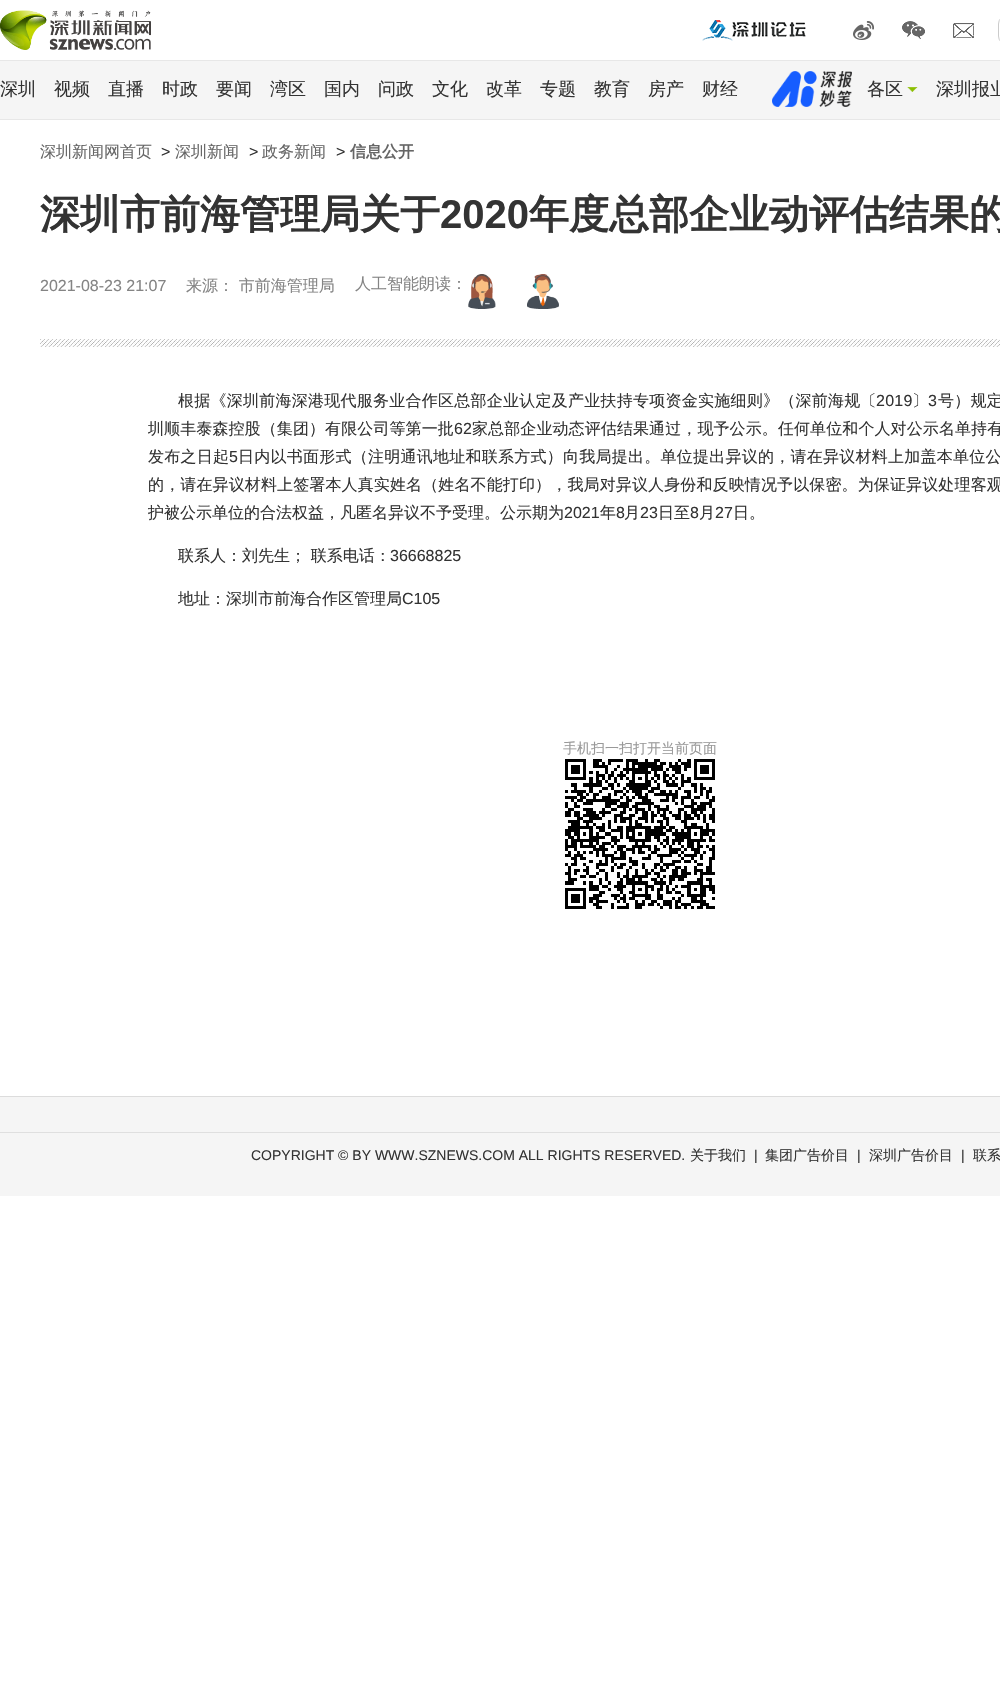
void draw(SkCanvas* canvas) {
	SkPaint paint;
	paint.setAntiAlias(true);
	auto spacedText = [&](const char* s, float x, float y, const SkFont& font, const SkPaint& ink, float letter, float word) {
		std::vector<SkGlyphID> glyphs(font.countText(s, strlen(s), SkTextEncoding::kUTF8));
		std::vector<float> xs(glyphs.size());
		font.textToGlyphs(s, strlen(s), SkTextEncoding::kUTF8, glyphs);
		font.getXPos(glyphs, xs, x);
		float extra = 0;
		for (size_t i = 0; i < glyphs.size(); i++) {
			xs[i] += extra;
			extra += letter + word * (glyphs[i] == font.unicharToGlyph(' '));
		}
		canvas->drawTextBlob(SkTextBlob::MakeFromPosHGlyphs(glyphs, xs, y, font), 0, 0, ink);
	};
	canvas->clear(0xffffffff);
	canvas->drawImageRect(SkImages::DeferredFromEncodedData(SkData::MakeFromFileName("img1.png")), SkRect::MakeXYWH(0, 10, 151, 40), SkSamplingOptions());
	canvas->drawImageRect(SkImages::DeferredFromEncodedData(SkData::MakeFromFileName("img2.png")), SkRect::MakeXYWH(702, 20, 104, 21), SkSamplingOptions());
	canvas->drawImageRect(SkImages::DeferredFromEncodedData(SkData::MakeFromFileName("img3.png")), SkRect::MakeXYWH(853, 21, 21, 19), SkSamplingOptions());
	canvas->drawImageRect(SkImages::DeferredFromEncodedData(SkData::MakeFromFileName("img4.png")), SkRect::MakeXYWH(902, 21, 23, 18), SkSamplingOptions());
	canvas->drawImageRect(SkImages::DeferredFromEncodedData(SkData::MakeFromFileName("img5.png")), SkRect::MakeXYWH(953, 23, 21, 15), SkSamplingOptions());
	paint.setStroke(true);
	paint.setStrokeWidth(1);
	paint.setColor(0xffcbcbcb);
	canvas->drawRoundRect(SkRect::MakeXYWH(998.5, 15.5, 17, 29), 14.5, 14.5, paint);
	paint.setStroke(false);
	paint.setColor(0xfff5f5f5);
	canvas->drawRect(SkRect::MakeXYWH(0, 61, 1000, 58), paint);
	paint.setColor(0xffe7e7e7);
	canvas->drawRect(SkRect::MakeXYWH(0, 60, 1000, 1), paint);
	canvas->drawRect(SkRect::MakeXYWH(0, 119, 1000, 1), paint);
	SkFont f1(fontMgr->matchFamilyStyle("WenQuanYi Zen Hei", SkFontStyle(500, SkFontStyle::kNormal_Width, SkFontStyle::kUpright_Slant)), 18);
	f1.setSubpixel(true);
	paint.setColor(0xff333333);
	canvas->drawString("深圳", 0, 95, f1, paint);
	canvas->drawString("视频", 54, 95, f1, paint);
	canvas->drawString("直播", 108, 95, f1, paint);
	canvas->drawString("时政", 162, 95, f1, paint);
	canvas->drawString("要闻", 216, 95, f1, paint);
	canvas->drawString("湾区", 270, 95, f1, paint);
	canvas->drawString("国内", 324, 95, f1, paint);
	canvas->drawString("问政", 378, 95, f1, paint);
	canvas->drawString("文化", 432, 95, f1, paint);
	canvas->drawString("改革", 486, 95, f1, paint);
	canvas->drawString("专题", 540, 95, f1, paint);
	canvas->drawString("教育", 594, 95, f1, paint);
	canvas->drawString("房产", 648, 95, f1, paint);
	canvas->drawString("财经", 702, 95, f1, paint);
	canvas->drawImageRect(SkImages::DeferredFromEncodedData(SkData::MakeFromFileName("img6.png")), SkRect::MakeXYWH(772, 71, 80, 36), SkSamplingOptions());
	canvas->drawString("各区", 867, 95, f1, paint);
	canvas->drawImageRect(SkImages::DeferredFromEncodedData(SkData::MakeFromFileName("img7.png")), SkRect::MakeXYWH(907, 87, 11, 5), SkSamplingOptions());
	canvas->drawString("深圳报业", 936, 95, f1, paint);
	SkFont f2(fontMgr->matchFamilyStyle("WenQuanYi Zen Hei", SkFontStyle(500, SkFontStyle::kNormal_Width, SkFontStyle::kUpright_Slant)), 16);
	f2.setSubpixel(true);
	paint.setColor(0xff666666);
	canvas->drawString("深圳新闻网首页", 40, 157, f2, paint);
	SkFont f3(fontMgr->matchFamilyStyle("Liberation Sans", SkFontStyle::Normal()), 16);
	f3.setSubpixel(true);
	paint.setColor(0xff333333);
	canvas->drawString(">", 161, 157, f3, paint);
	paint.setColor(0xff666666);
	canvas->drawString("深圳新闻", 175, 157, f2, paint);
	paint.setColor(0xff333333);
	canvas->drawString(">", 249, 157, f3, paint);
	paint.setColor(0xff666666);
	canvas->drawString("政务新闻", 262, 157, f2, paint);
	paint.setColor(0xff333333);
	canvas->drawString(">", 336, 157, f3, paint);
	SkFont f4(fontMgr->matchFamilyStyle("WenQuanYi Zen Hei", SkFontStyle::Bold()), 16);
	f4.setSubpixel(true);
	paint.setColor(0xff666666);
	canvas->drawString("信息公开", 350, 157, f4, paint);
	SkFont f5(fontMgr->matchFamilyStyle("WenQuanYi Zen Hei", SkFontStyle::Bold()), 40);
	f5.setSubpixel(true);
	paint.setColor(0xff333333);
	canvas->drawString("深圳市前海管理局关于", 40, 228, f5, paint);
	SkFont f6(fontMgr->matchFamilyStyle("Liberation Sans", SkFontStyle::Bold()), 40);
	f6.setSubpixel(true);
	canvas->drawString("2020", 440, 228, f6, paint);
	canvas->drawString("年度总部企业动评估结果的", 529, 228, f5, paint);
	paint.setColor(0xff848484);
	canvas->drawString("2021-08-23 21:07", 40, 291, f3, paint);
	canvas->drawString("来源： 市前海管理局", 186, 291, f2, paint);
	canvas->drawString("人工智能朗读：", 355, 289, f2, paint);
	canvas->drawImageRect(SkImages::DeferredFromEncodedData(SkData::MakeFromFileName("img8.png")), SkRect::MakeXYWH(468, 274, 28, 35), SkSamplingOptions());
	canvas->drawImageRect(SkImages::DeferredFromEncodedData(SkData::MakeFromFileName("img9.png")), SkRect::MakeXYWH(527, 274, 32, 35), SkSamplingOptions());
	canvas->drawImageRect(SkImages::DeferredFromEncodedData(SkData::MakeFromFileName("img10.png")), SkRect::MakeXYWH(40, 339, 960, 8), SkSamplingOptions());
	paint.setColor(0xff333333);
	spacedText("根据《深圳前海深港现代服务业合作区总部企业认定及产业扶持专项资金实施细则》（深前海规〔", 178, 406, f2, paint, 0.25, 0);
	spacedText("2019", 876, 406, f3, paint, 0.25, 0);
	spacedText("〕", 912, 406, f2, paint, 0.25, 0);
	spacedText("3", 928, 406, f3, paint, 0.25, 0);
	spacedText("号）规定", 938, 406, f2, paint, 0.25, 0);
	spacedText("圳顺丰泰森控股（集团）有限公司等第一批", 148, 434, f2, paint, 0.1, 0);
	spacedText("62", 454, 434, f3, paint, 0.1, 0);
	spacedText("家总部企业动态评估结果通过，现予公示。任何单位和个人对公示名单持有", 472, 434, f2, paint, 0.1, 0);
	spacedText("发布之日起", 148, 462, f2, paint, 0.25, 0);
	spacedText("5", 229, 462, f3, paint, 0.25, 0);
	spacedText("日内以书面形式（注明通讯地址和联系方式）向我局提出。单位提出异议的，请在异议材料上加盖本单位公", 238, 462, f2, paint, 0.25, 0);
	spacedText("的，请在异议材料上签署本人真实姓名（姓名不能打印），我局对异议人身份和反映情况予以保密。为保证异议处理客观", 148, 490, f2, paint, 0.13, 0);
	canvas->drawString("护被公示单位的合法权益，凡匿名异议不予受理。公示期为", 148, 518, f2, paint);
	canvas->drawString("2021", 564, 518, f3, paint);
	canvas->drawString("年", 600, 518, f2, paint);
	canvas->drawString("8", 616, 518, f3, paint);
	canvas->drawString("月", 624, 518, f2, paint);
	canvas->drawString("23", 640, 518, f3, paint);
	canvas->drawString("日至", 658, 518, f2, paint);
	canvas->drawString("8", 690, 518, f3, paint);
	canvas->drawString("月", 699, 518, f2, paint);
	canvas->drawString("27", 715, 518, f3, paint);
	canvas->drawString("日。", 733, 518, f2, paint);
	canvas->drawString("联系人：刘先生； 联系电话：", 178, 561, f2, paint);
	canvas->drawString("36668825", 390, 561, f3, paint);
	canvas->drawString("地址：深圳市前海合作区管理局", 178, 604, f2, paint);
	canvas->drawString("C105", 402, 604, f3, paint);
	SkFont f7(fontMgr->matchFamilyStyle("WenQuanYi Zen Hei", SkFontStyle(500, SkFontStyle::kNormal_Width, SkFontStyle::kUpright_Slant)), 14);
	f7.setSubpixel(true);
	paint.setColor(0xff999999);
	canvas->drawString("手机扫一扫打开当前页面", 563, 753, f7, paint);
	canvas->drawImageRect(SkImages::DeferredFromEncodedData(SkData::MakeFromFileName("img11.png")), SkRect::MakeXYWH(565, 759, 150, 150), SkSamplingOptions());
	paint.setColor(0xfff5f5f5);
	canvas->drawRect(SkRect::MakeXYWH(0, 1097, 1000, 99), paint);
	paint.setColor(0xffdcdcdc);
	canvas->drawRect(SkRect::MakeXYWH(0, 1096, 1000, 1), paint);
	paint.setColor(0xffdfdfdf);
	canvas->drawRect(SkRect::MakeXYWH(0, 1132, 1000, 1), paint);
	SkFont f8(fontMgr->matchFamilyStyle("Liberation Sans", SkFontStyle::Normal()), 14);
	f8.setSubpixel(true);
	paint.setColor(0xff333333);
	canvas->drawString("COPYRIGHT © BY WWW.SZNEWS.COM ALL RIGHTS RESERVED.", 251, 1160, f8, paint);
	canvas->drawString("关于我们", 690, 1160, f7, paint);
	canvas->drawString("|", 754, 1160, f8, paint);
	canvas->drawString("集团广告价目", 765, 1160, f7, paint);
	canvas->drawString("|", 857, 1160, f8, paint);
	canvas->drawString("深圳广告价目", 869, 1160, f7, paint);
	canvas->drawString("|", 961, 1160, f8, paint);
	canvas->drawString("联系", 973, 1160, f7, paint);
}
